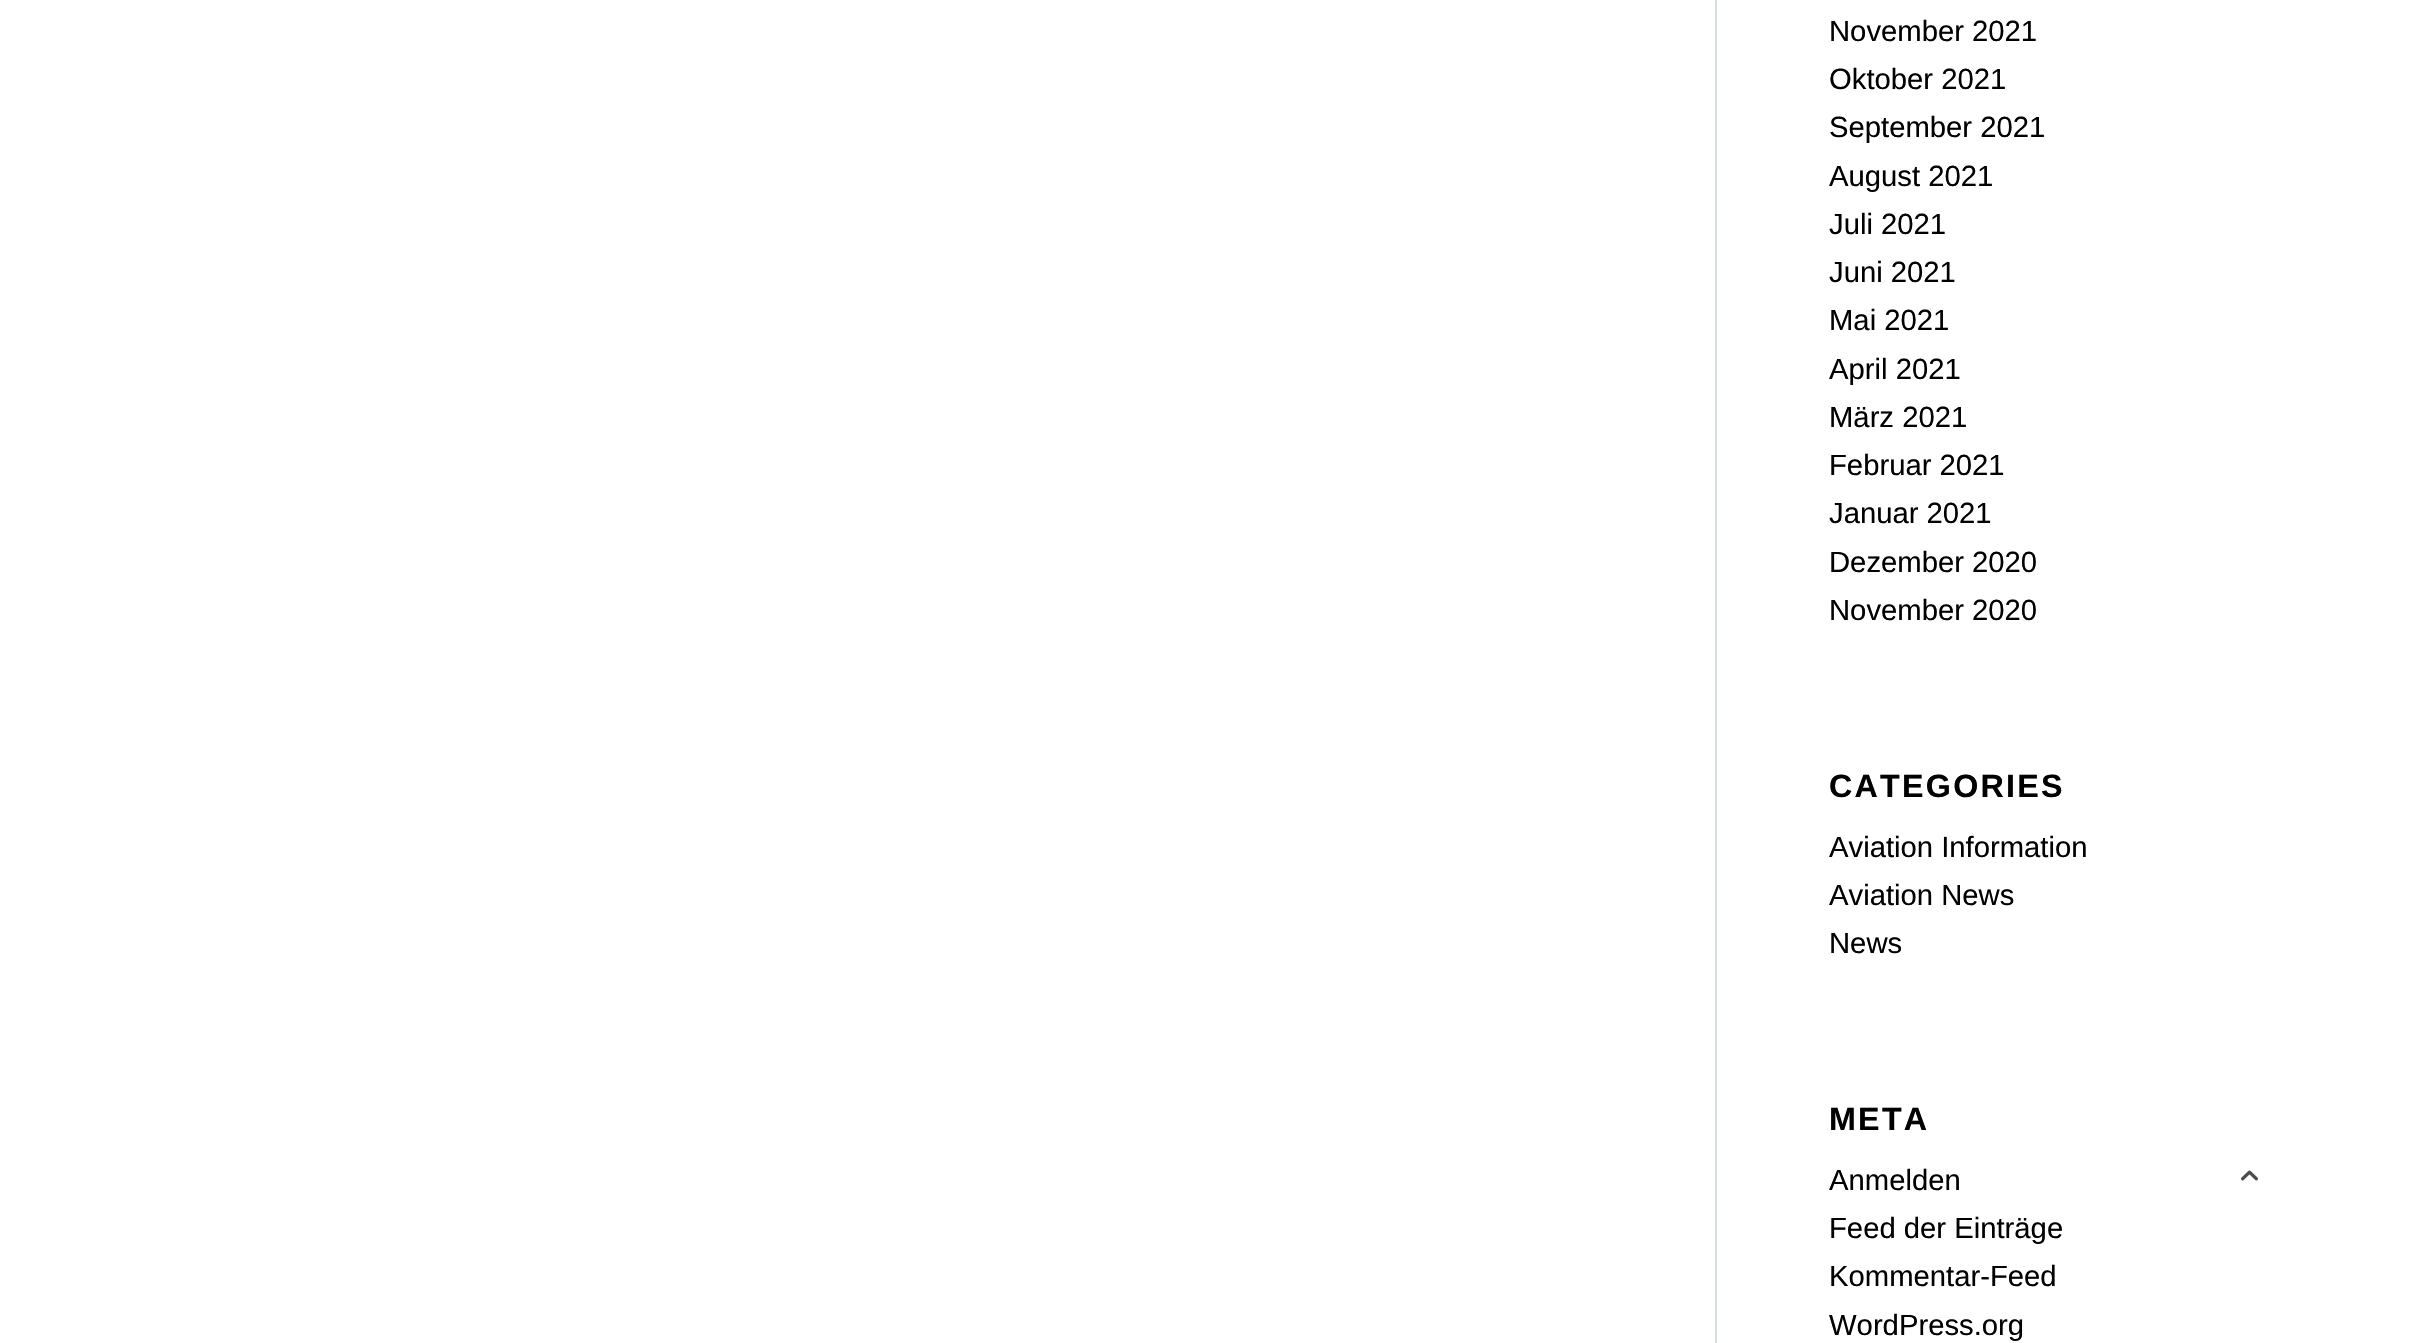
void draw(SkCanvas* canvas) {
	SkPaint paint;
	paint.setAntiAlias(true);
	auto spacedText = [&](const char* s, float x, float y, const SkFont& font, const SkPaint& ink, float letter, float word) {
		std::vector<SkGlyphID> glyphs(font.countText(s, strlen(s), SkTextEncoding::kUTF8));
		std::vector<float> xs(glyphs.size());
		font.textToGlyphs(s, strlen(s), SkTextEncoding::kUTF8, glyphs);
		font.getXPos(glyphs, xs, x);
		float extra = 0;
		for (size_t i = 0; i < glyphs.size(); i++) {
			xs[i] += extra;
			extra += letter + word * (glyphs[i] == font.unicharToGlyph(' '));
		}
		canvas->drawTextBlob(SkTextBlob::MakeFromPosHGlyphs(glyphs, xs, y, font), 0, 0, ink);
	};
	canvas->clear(0xffffffff);
	paint.setColor(0xffd6e0d9);
	canvas->drawRect(SkRect::MakeXYWH(1715, 0, 2, 1343), paint);
	SkFont f1(fontMgr->matchFamilyStyle("Liberation Sans", SkFontStyle::Normal()), 29.25);
	f1.setSubpixel(true);
	paint.setColor(0xff000000);
	canvas->drawString("November 2021", 1829, 41, f1, paint);
	canvas->drawString("Oktober 2021", 1829, 89, f1, paint);
	canvas->drawString("September 2021", 1829, 137, f1, paint);
	canvas->drawString("August 2021", 1829, 186, f1, paint);
	canvas->drawString("Juli 2021", 1829, 234, f1, paint);
	canvas->drawString("Juni 2021", 1829, 282, f1, paint);
	canvas->drawString("Mai 2021", 1829, 330, f1, paint);
	canvas->drawString("April 2021", 1829, 379, f1, paint);
	canvas->drawString("März 2021", 1829, 427, f1, paint);
	canvas->drawString("Februar 2021", 1829, 475, f1, paint);
	canvas->drawString("Januar 2021", 1829, 523, f1, paint);
	canvas->drawString("Dezember 2020", 1829, 572, f1, paint);
	canvas->drawString("November 2020", 1829, 620, f1, paint);
	SkFont f2(fontMgr->matchFamilyStyle("Liberation Sans", SkFontStyle::Bold()), 32.25);
	f2.setSubpixel(true);
	spacedText("CATEGORIES", 1829, 797, f2, paint, 2.25, 0);
	canvas->drawString("Aviation Information", 1829, 857, f1, paint);
	canvas->drawString("Aviation News", 1829, 905, f1, paint);
	canvas->drawString("News", 1829, 953, f1, paint);
	spacedText("META", 1829, 1130, f2, paint, 2.25, 0);
	canvas->drawString("Anmelden", 1829, 1190, f1, paint);
	canvas->drawString("Feed der Einträge", 1829, 1238, f1, paint);
	canvas->drawString("Kommentar-Feed", 1829, 1286, f1, paint);
	canvas->drawString("WordPress.org", 1829, 1335, f1, paint);
	canvas->drawImageRect(SkImages::DeferredFromEncodedData(SkData::MakeFromFileName("img1.png")), SkRect::MakeXYWH(2241, 1170, 17, 11), SkSamplingOptions());
}
